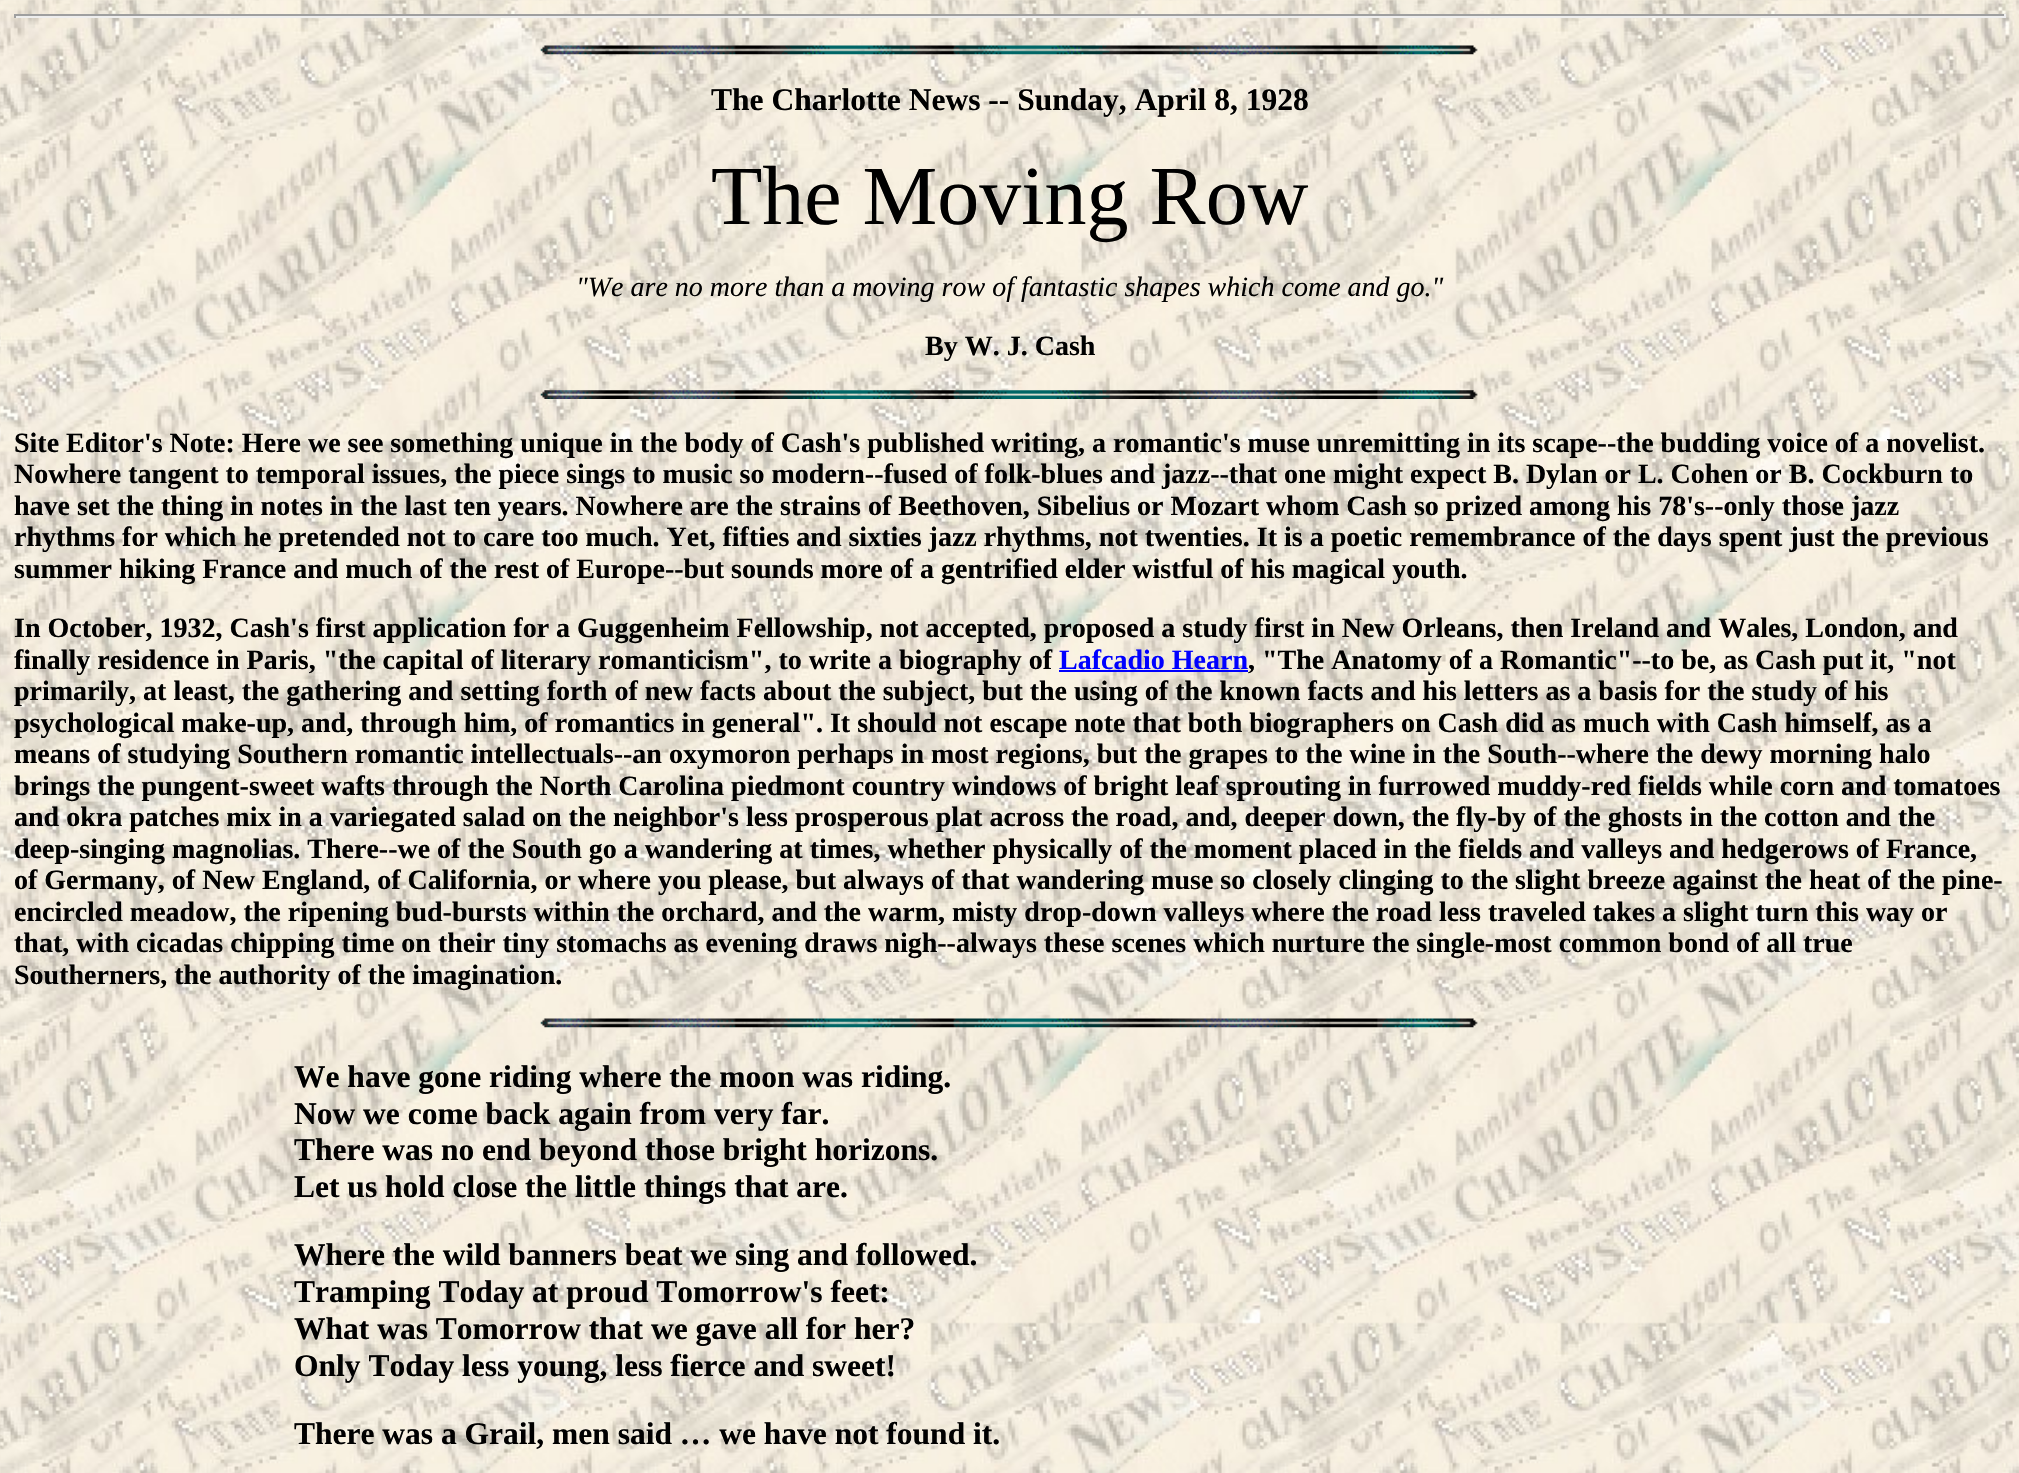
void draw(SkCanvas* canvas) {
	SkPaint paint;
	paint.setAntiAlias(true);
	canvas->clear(0xffffffff);
	canvas->drawImageRect(SkImages::DeferredFromEncodedData(SkData::MakeFromFileName("img1.png")), SkRect::MakeXYWH(0, 0, 2019, 1473), SkSamplingOptions());
	paint.setColor(0xff9f9f9f);
	canvas->drawRect(SkRect::MakeXYWH(14, 14, 1992, 2), paint);
	paint.setColor(0xffeeeeee);
	canvas->drawRect(SkRect::MakeXYWH(2004, 14, 2, 4), paint);
	canvas->drawRect(SkRect::MakeXYWH(14, 16, 1992, 2), paint);
	paint.setColor(0xff9f9f9f);
	canvas->drawRect(SkRect::MakeXYWH(14, 14, 2, 4), paint);
	canvas->drawImageRect(SkImages::DeferredFromEncodedData(SkData::MakeFromFileName("img2.png")), SkRect::MakeXYWH(540, 45, 938, 10), SkSamplingOptions());
	SkFont f1(fontMgr->matchFamilyStyle("Liberation Serif", SkFontStyle::Bold()), 31.5);
	f1.setSubpixel(true);
	paint.setColor(0xff000000);
	canvas->drawString("The Charlotte News -- Sunday, April 8, 1928", 711, 110, f1, paint);
	SkFont f2(fontMgr->matchFamilyStyle("Liberation Serif", SkFontStyle::Normal()), 84);
	f2.setSubpixel(true);
	canvas->drawString("The Moving Row", 711, 224, f2, paint);
	SkFont f3(fontMgr->matchFamilyStyle("Liberation Serif", SkFontStyle::Italic()), 28);
	f3.setSubpixel(true);
	canvas->drawString("\"We are no more than a moving row of fantastic shapes which come and go.\"", 576, 296, f3, paint);
	SkFont f4(fontMgr->matchFamilyStyle("Liberation Serif", SkFontStyle::Bold()), 28);
	f4.setSubpixel(true);
	canvas->drawString("By W. J. Cash", 925, 355, f4, paint);
	canvas->drawImageRect(SkImages::DeferredFromEncodedData(SkData::MakeFromFileName("img3.png")), SkRect::MakeXYWH(540, 390, 938, 9), SkSamplingOptions());
	canvas->drawString("Site Editor's Note: Here we see something unique in the body of Cash's published writing, a romantic's muse unremitting in its scape--the budding voice of a novelist.", 14, 452, f4, paint);
	canvas->drawString("Nowhere tangent to temporal issues, the piece sings to music so modern--fused of folk-blues and jazz--that one might expect B. Dylan or L. Cohen or B. Cockburn to", 14, 483, f4, paint);
	canvas->drawString("have set the thing in notes in the last ten years. Nowhere are the strains of Beethoven, Sibelius or Mozart whom Cash so prized among his 78's--only those jazz", 14, 515, f4, paint);
	canvas->drawString("rhythms for which he pretended not to care too much. Yet, fifties and sixties jazz rhythms, not twenties. It is a poetic remembrance of the days spent just the previous", 14, 546, f4, paint);
	canvas->drawString("summer hiking France and much of the rest of Europe--but sounds more of a gentrified elder wistful of his magical youth.", 14, 578, f4, paint);
	canvas->drawString("In October, 1932, Cash's first application for a Guggenheim Fellowship, not accepted, proposed a study first in New Orleans, then Ireland and Wales, London, and", 14, 637, f4, paint);
	canvas->drawString("finally residence in Paris, \"the capital of literary romanticism\", to write a biography of", 14, 669, f4, paint);
	paint.setColor(0xff0000ff);
	canvas->drawString("Lafcadio Hearn", 1059, 669, f4, paint);
	canvas->drawRect(SkRect::MakeXYWH(1059, 670, 189, 2), paint);
	paint.setColor(0xff000000);
	canvas->drawString(", \"The Anatomy of a Romantic\"--to be, as Cash put it, \"not", 1248, 669, f4, paint);
	canvas->drawString("primarily, at least, the gathering and setting forth of new facts about the subject, but the using of the known facts and his letters as a basis for the study of his", 14, 700, f4, paint);
	canvas->drawString("psychological make-up, and, through him, of romantics in general\". It should not escape note that both biographers on Cash did as much with Cash himself, as a", 14, 732, f4, paint);
	canvas->drawString("means of studying Southern romantic intellectuals--an oxymoron perhaps in most regions, but the grapes to the wine in the South--where the dewy morning halo", 14, 763, f4, paint);
	canvas->drawString("brings the pungent-sweet wafts through the North Carolina piedmont country windows of bright leaf sprouting in furrowed muddy-red fields while corn and tomatoes", 14, 795, f4, paint);
	canvas->drawString("and okra patches mix in a variegated salad on the neighbor's less prosperous plat across the road, and, deeper down, the fly-by of the ghosts in the cotton and the", 14, 826, f4, paint);
	canvas->drawString("deep-singing magnolias. There--we of the South go a wandering at times, whether physically of the moment placed in the fields and valleys and hedgerows of France,", 14, 858, f4, paint);
	canvas->drawString("of Germany, of New England, of California, or where you please, but always of that wandering muse so closely clinging to the slight breeze against the heat of the pine-", 14, 889, f4, paint);
	canvas->drawString("encircled meadow, the ripening bud-bursts within the orchard, and the warm, misty drop-down valleys where the road less traveled takes a slight turn this way or", 14, 921, f4, paint);
	canvas->drawString("that, with cicadas chipping time on their tiny stomachs as evening draws nigh--always these scenes which nurture the single-most common bond of all true", 14, 952, f4, paint);
	canvas->drawString("Southerners, the authority of the imagination.", 14, 984, f4, paint);
	canvas->drawImageRect(SkImages::DeferredFromEncodedData(SkData::MakeFromFileName("img4.png")), SkRect::MakeXYWH(540, 1018, 938, 10), SkSamplingOptions());
	canvas->drawString("We have gone riding where the moon was riding.", 294, 1087, f1, paint);
	canvas->drawString("Now we come back again from very far.", 294, 1124, f1, paint);
	canvas->drawString("There was no end beyond those bright horizons.", 294, 1160, f1, paint);
	canvas->drawString("Let us hold close the little things that are.", 294, 1197, f1, paint);
	canvas->drawString("Where the wild banners beat we sing and followed.", 294, 1265, f1, paint);
	canvas->drawString("Tramping Today at proud Tomorrow's feet:", 294, 1302, f1, paint);
	canvas->drawString("What was Tomorrow that we gave all for her?", 294, 1339, f1, paint);
	canvas->drawString("Only Today less young, less fierce and sweet!", 294, 1376, f1, paint);
	canvas->drawString("There was a Grail, men said … we have not found it.", 294, 1444, f1, paint);
}
